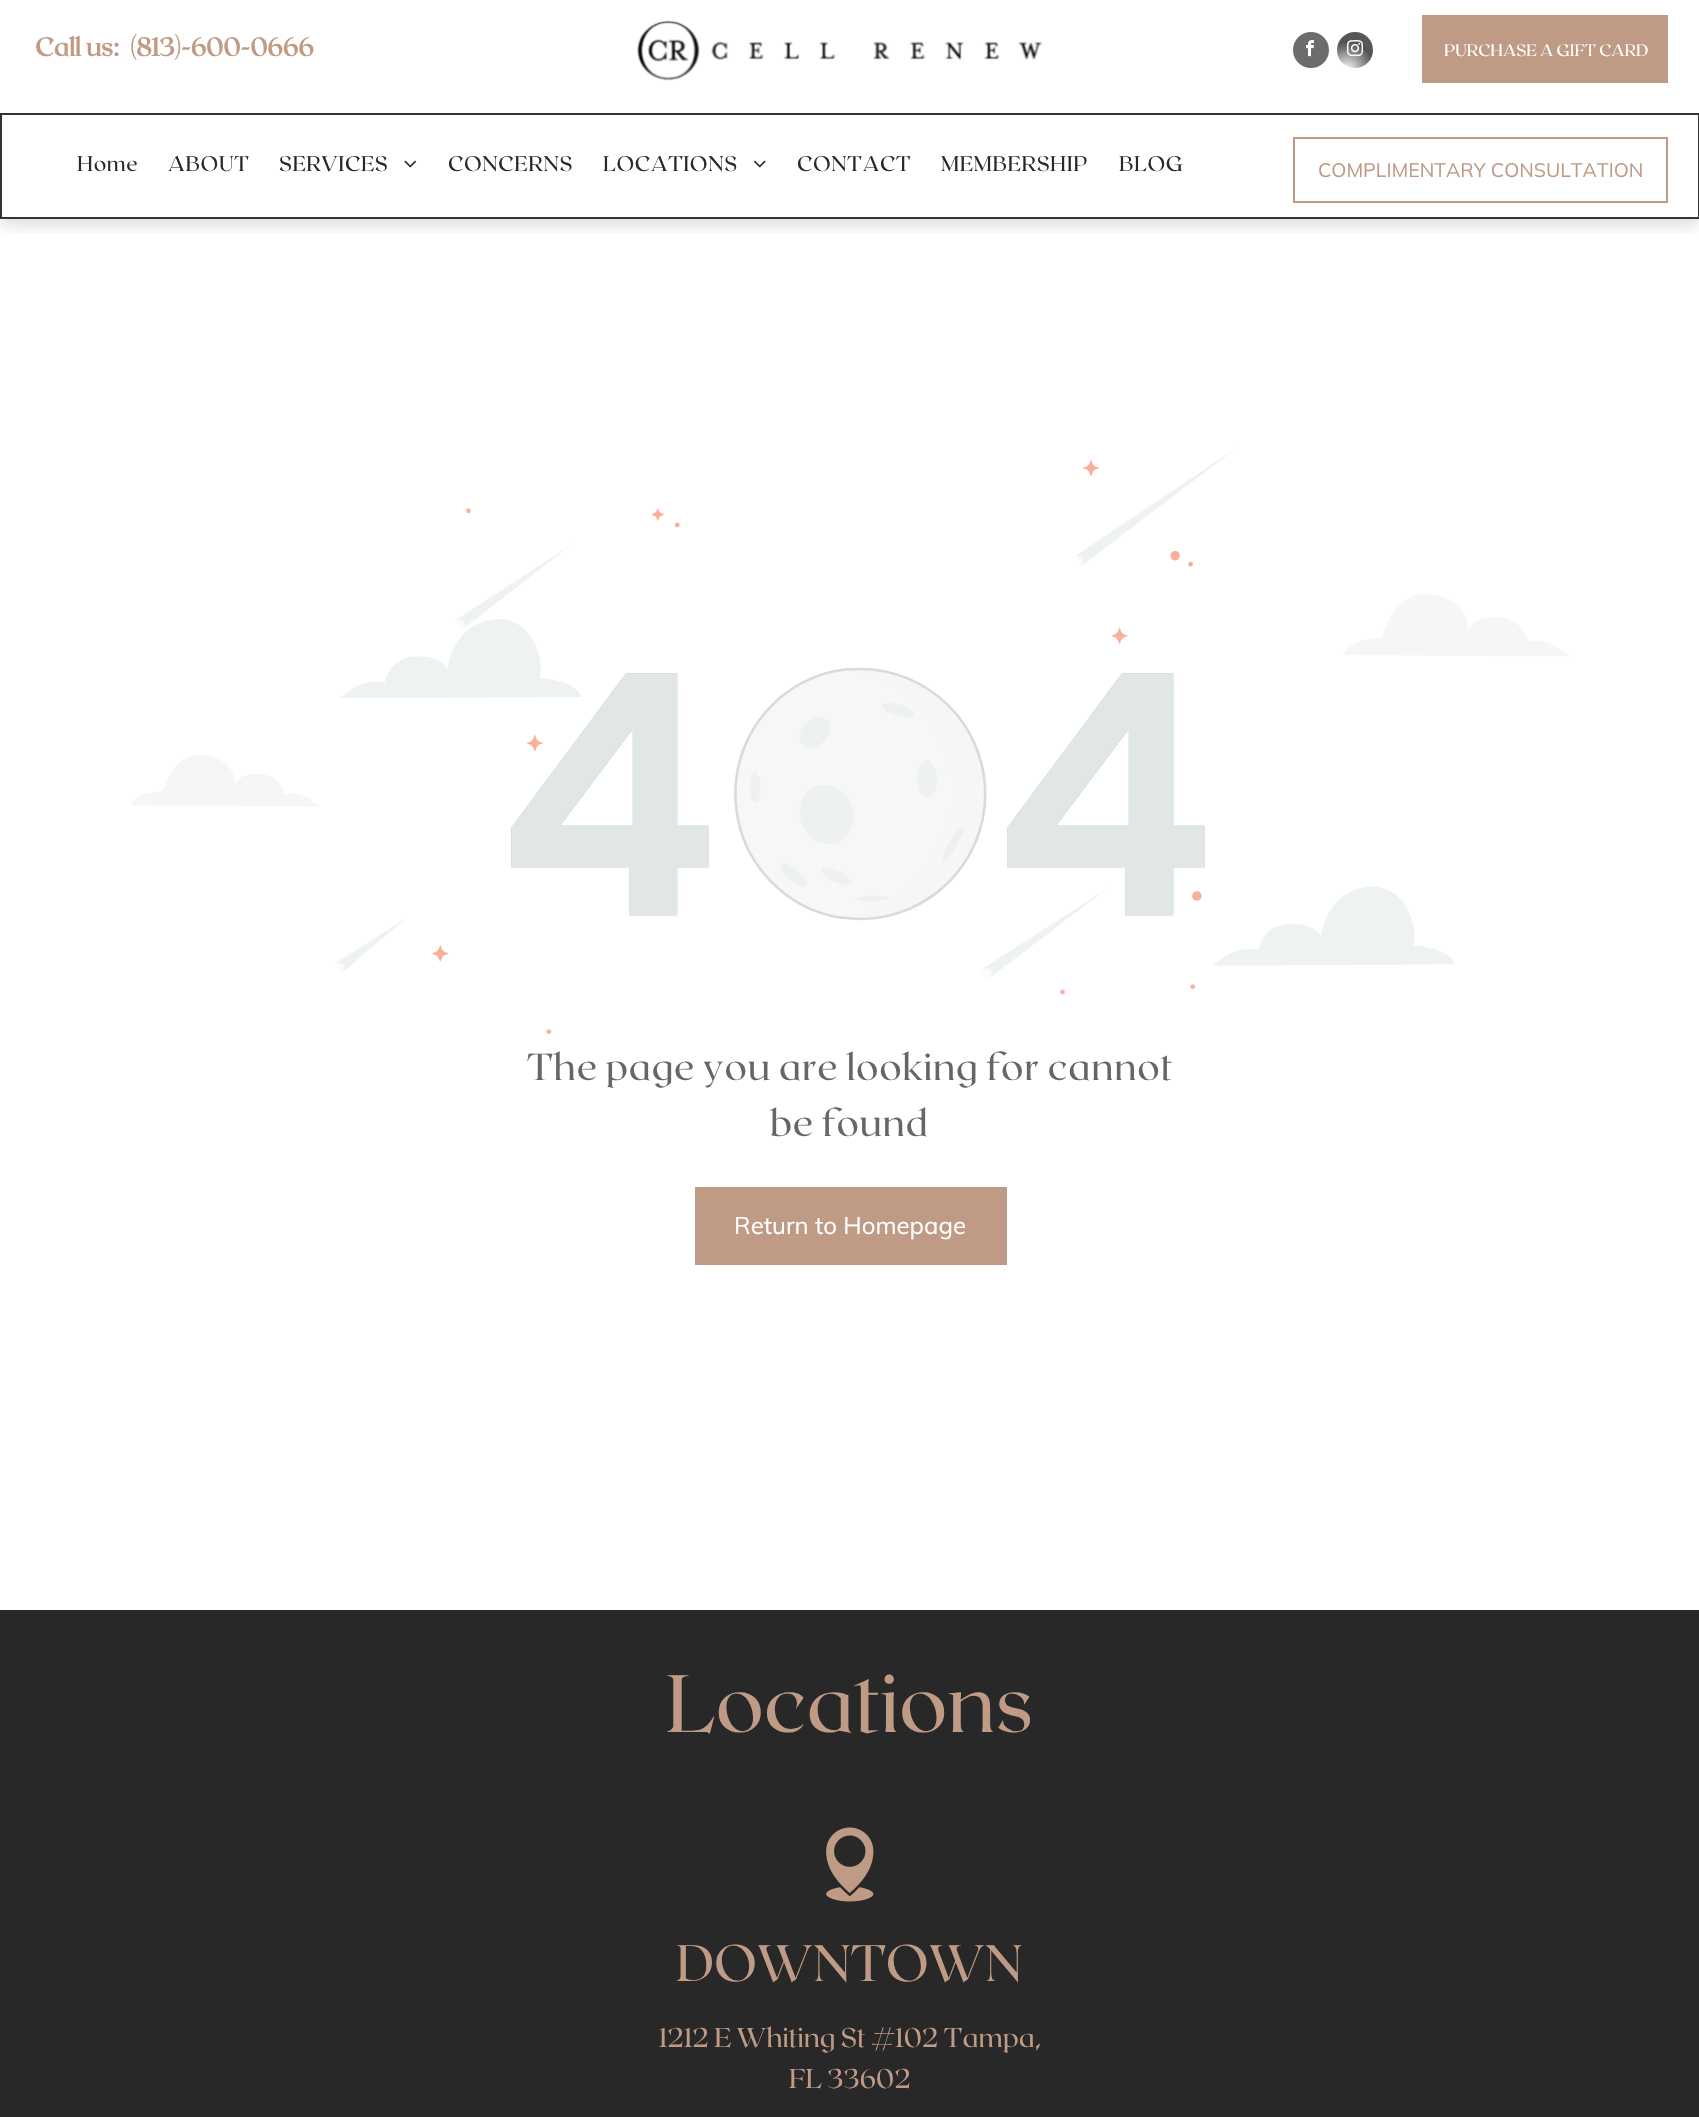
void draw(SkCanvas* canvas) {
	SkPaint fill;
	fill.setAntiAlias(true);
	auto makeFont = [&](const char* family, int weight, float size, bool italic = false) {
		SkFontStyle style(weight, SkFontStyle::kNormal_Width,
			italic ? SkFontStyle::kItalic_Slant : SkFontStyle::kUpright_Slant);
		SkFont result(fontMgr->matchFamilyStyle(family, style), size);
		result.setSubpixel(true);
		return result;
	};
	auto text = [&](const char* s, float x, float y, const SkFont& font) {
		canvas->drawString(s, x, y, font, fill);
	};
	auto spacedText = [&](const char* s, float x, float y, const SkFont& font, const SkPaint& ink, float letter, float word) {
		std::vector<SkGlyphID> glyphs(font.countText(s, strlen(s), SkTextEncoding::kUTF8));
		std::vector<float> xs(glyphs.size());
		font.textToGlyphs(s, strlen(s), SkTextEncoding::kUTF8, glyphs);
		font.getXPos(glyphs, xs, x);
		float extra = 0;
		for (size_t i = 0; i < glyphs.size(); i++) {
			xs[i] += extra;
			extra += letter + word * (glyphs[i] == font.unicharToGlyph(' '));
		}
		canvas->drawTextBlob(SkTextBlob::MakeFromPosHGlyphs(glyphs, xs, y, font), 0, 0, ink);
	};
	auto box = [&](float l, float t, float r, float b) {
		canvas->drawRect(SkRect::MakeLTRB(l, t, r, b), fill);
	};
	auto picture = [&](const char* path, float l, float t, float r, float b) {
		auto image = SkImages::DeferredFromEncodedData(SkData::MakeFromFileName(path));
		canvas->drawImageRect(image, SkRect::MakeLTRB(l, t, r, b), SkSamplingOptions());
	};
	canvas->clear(0xFFFFFFFF);
	canvas->save();
	canvas->clipRect(SkRect::MakeLTRB(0, 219, 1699, 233));
	fill.setColor(0x26000000);
	fill.setMaskFilter(SkMaskFilter::MakeBlur(kNormal_SkBlurStyle, 8));
	canvas->drawRect(SkRect::MakeLTRB(0, 5, 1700, 224), fill);
	fill.setMaskFilter(nullptr);
	canvas->restore();
	picture("image0.png", 637, 20, 1043, 81);
	fill.setColor(0xFF6C6C6C);
	canvas->drawCircle(1311, 50, 18, fill);
	picture("image1.png", 1306, 40, 1314, 57);
	{
		const SkColor colors[] = {0xFFEFEFEF, 0xFFEFEFEF, 0xFF7B7B7B, 0xFF535353, 0xFF5A5A5A};
		const float stops[] = {0, 0.05f, 0.45f, 0.6f, 0.9f};
		fill.setShader(SkGradientShader::MakeRadial({1347, 70}, 46, colors, stops, 5, SkTileMode::kClamp));
		fill.setAlpha(255);
	}
	canvas->drawCircle(1355, 50, 18, fill);
	picture("image2.png", 1347, 40, 1363, 57);
	fill.setShader(nullptr);
	fill.setColor(0xFFBF9B85);
	box(1422, 15, 1668, 83);
	fill.setStyle(SkPaint::kStroke_Style);
	fill.setStrokeWidth(2);
	fill.setColor(0xFF333333);
	canvas->drawRect(SkRect::MakeLTRB(1, 114, 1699, 218), fill);
	picture("image3.png", 404, 160, 417, 168);
	picture("image4.png", 753, 160, 766, 168);
	fill.setColor(0xFFBF9B85);
	canvas->drawRect(SkRect::MakeLTRB(1294, 138, 1667, 202), fill);
	picture("image5.png", 131, 446, 1570, 1034);
	fill.setStyle(SkPaint::kFill_Style);
	box(695, 1187, 1007, 1265);
	fill.setColor(0xFF282828);
	box(0, 1610, 1699, 2117);
	picture("image6.png", 826, 1827, 874, 1902);
	auto font1 = makeFont("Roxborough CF", 700, 25.5f);
	fill.setColor(0xFFBF9B85);
	text("Call us:", 35, 56, font1);
	text("(813)-600-0666", 130, 56, font1);
	auto font2 = makeFont("Roxborough CF", 400, 16.5f);
	fill.setColor(0xFFFFFFFF);
	text("PURCHASE A GIFT CARD", 1444, 56, font2);
	auto font3 = makeFont("Roxborough CF", 400, 21);
	fill.setColor(0xFF282828);
	spacedText("Home", 77, 171, font3, fill, 0.6f, 0);
	spacedText("ABOUT", 168, 171, font3, fill, 0.6f, 0);
	spacedText("SERVICES", 279, 171, font3, fill, 0.6f, 0);
	spacedText("CONCERNS", 448, 171, font3, fill, 0.6f, 0);
	spacedText("LOCATIONS", 603, 171, font3, fill, 0.6f, 0);
	spacedText("CONTACT", 797, 171, font3, fill, 0.6f, 0);
	spacedText("MEMBERSHIP", 941, 171, font3, fill, 0.6f, 0);
	spacedText("BLOG", 1119, 171, font3, fill, 0.6f, 0);
	auto font4 = makeFont("Mulish", 400, 19.5f);
	fill.setColor(0xFFBF9B85);
	text("COMPLIMENTARY CONSULTATION", 1318, 177, font4);
	auto font5 = makeFont("Roxborough CF", 400, 37.5f);
	fill.setColor(0xFF666666);
	spacedText("The page you are looking for cannot", 527, 1080, font5, fill, 0.75f, 0);
	spacedText("be found", 770, 1136, font5, fill, 0.75f, 0);
	auto font6 = makeFont("Muli", 400, 24);
	fill.setColor(0xFFFFFFFF);
	text("Return to Homepage", 734, 1234, font6);
	auto font7 = makeFont("Roxborough CF", 400, 81);
	fill.setColor(0xFFBF9B85);
	text("Locations", 666, 1732, font7);
	auto font8 = makeFont("Roxborough CF", 400, 51);
	text("DOWNTOWN", 676, 1981, font8);
	auto font9 = makeFont("Roxborough CF", 400, 27);
	text("1212 E Whiting St #102 Tampa,", 659, 2047, font9);
	text("FL 33602", 789, 2088, font9);
}
